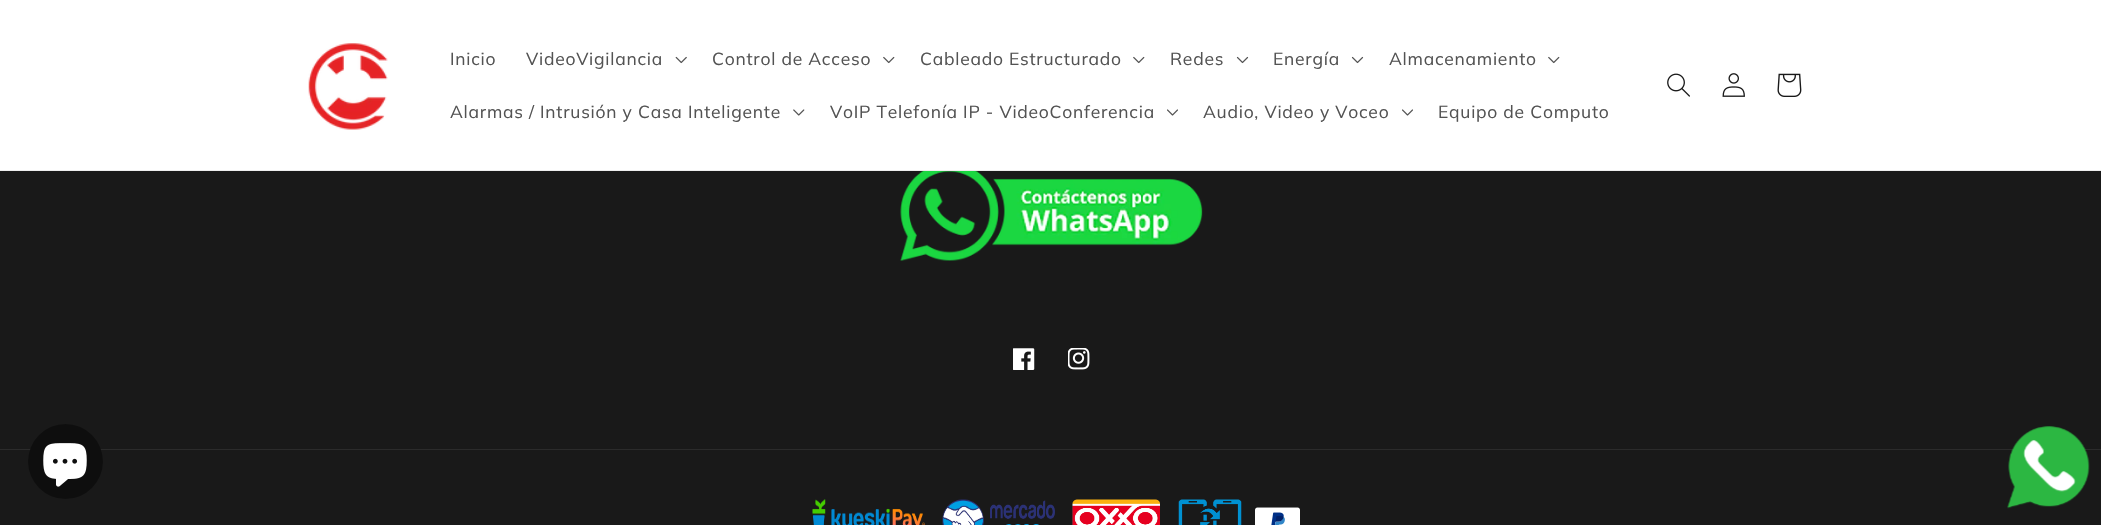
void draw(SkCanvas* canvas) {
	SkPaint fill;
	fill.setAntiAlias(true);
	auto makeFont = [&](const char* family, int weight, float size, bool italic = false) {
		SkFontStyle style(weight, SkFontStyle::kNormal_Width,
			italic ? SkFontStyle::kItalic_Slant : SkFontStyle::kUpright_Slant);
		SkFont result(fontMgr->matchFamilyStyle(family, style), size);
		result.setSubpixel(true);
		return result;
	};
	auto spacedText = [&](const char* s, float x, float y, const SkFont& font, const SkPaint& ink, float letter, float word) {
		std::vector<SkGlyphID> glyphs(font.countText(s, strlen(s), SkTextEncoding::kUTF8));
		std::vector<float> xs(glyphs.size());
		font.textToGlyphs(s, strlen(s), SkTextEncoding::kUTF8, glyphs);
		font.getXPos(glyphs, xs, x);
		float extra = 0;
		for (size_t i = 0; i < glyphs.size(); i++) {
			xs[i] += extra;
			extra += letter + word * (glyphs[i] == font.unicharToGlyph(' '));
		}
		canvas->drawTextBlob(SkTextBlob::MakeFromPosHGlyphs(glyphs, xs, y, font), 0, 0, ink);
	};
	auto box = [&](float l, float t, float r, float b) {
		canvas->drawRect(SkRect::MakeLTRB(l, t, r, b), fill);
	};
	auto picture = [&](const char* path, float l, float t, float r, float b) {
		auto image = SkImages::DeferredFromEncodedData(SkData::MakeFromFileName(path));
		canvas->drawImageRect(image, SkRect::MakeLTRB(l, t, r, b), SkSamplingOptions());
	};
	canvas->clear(0xFF191919);
	fill.setColor(0xFFFFFFFF);
	box(0, 0, 2101, 170);
	fill.setColor(0xFFEDEDED);
	box(0, 170, 2101, 171);
	picture("image0.png", 308, 43, 388, 130);
	picture("image1.png", 675, 56, 687, 64);
	picture("image2.png", 883, 56, 895, 64);
	picture("image2.png", 1133, 56, 1145, 64);
	picture("image3.png", 1236, 56, 1249, 64);
	picture("image3.png", 1351, 56, 1364, 64);
	picture("image2.png", 1548, 56, 1560, 64);
	picture("image4.png", 793, 109, 805, 116);
	picture("image5.png", 1167, 109, 1178, 116);
	picture("image5.png", 1402, 109, 1413, 116);
	picture("image6.png", 1667, 73, 1690, 97);
	picture("image7.png", 1722, 73, 1745, 97);
	picture("image8.png", 1777, 73, 1802, 97);
	picture("image9.png", 900, 171, 1203, 261);
	picture("image10.png", 1013, 348, 1035, 370);
	picture("image11.png", 1068, 348, 1090, 370);
	fill.setColor(0xFF2B2B2B);
	box(0, 449, 2101, 450);
	picture("image12.png", 812, 499, 925, 525);
	picture("image13.png", 942, 499, 1055, 525);
	picture("image14.png", 1072, 499, 1160, 525);
	picture("image15.png", 1178, 499, 1242, 525);
	picture("image16.png", 1255, 507, 1300, 525);
	fill.setColor(0xFF0E0E0E);
	canvas->drawCircle(65.5f, 461.5f, 37.5f, fill);
	picture("image17.png", 43, 443, 87, 487);
	picture("image18.png", 2007, 426, 2090, 509);
	auto font1 = makeFont("Muli", 400, 17.5f);
	fill.setColor(0xFF535353);
	spacedText("Inicio", 450, 65, font1, fill, 0.75f, 0);
	spacedText("VideoVigilancia", 526, 65, font1, fill, 0.75f, 0);
	spacedText("Control de Acceso", 712, 65, font1, fill, 0.75f, 0);
	spacedText("Cableado Estructurado", 920, 65, font1, fill, 0.75f, 0);
	spacedText("Redes", 1170, 65, font1, fill, 0.75f, 0);
	spacedText("Energía", 1273, 65, font1, fill, 0.75f, 0);
	spacedText("Almacenamiento", 1389, 65, font1, fill, 0.75f, 0);
	spacedText("Alarmas / Intrusión y Casa Inteligente", 450, 118, font1, fill, 0.75f, 0);
	spacedText("VoIP Telefonía IP - VideoConferencia", 830, 118, font1, fill, 0.75f, 0);
	spacedText("Audio, Video y Voceo", 1203, 118, font1, fill, 0.75f, 0);
	spacedText("Equipo de Computo", 1438, 118, font1, fill, 0.75f, 0);
}
